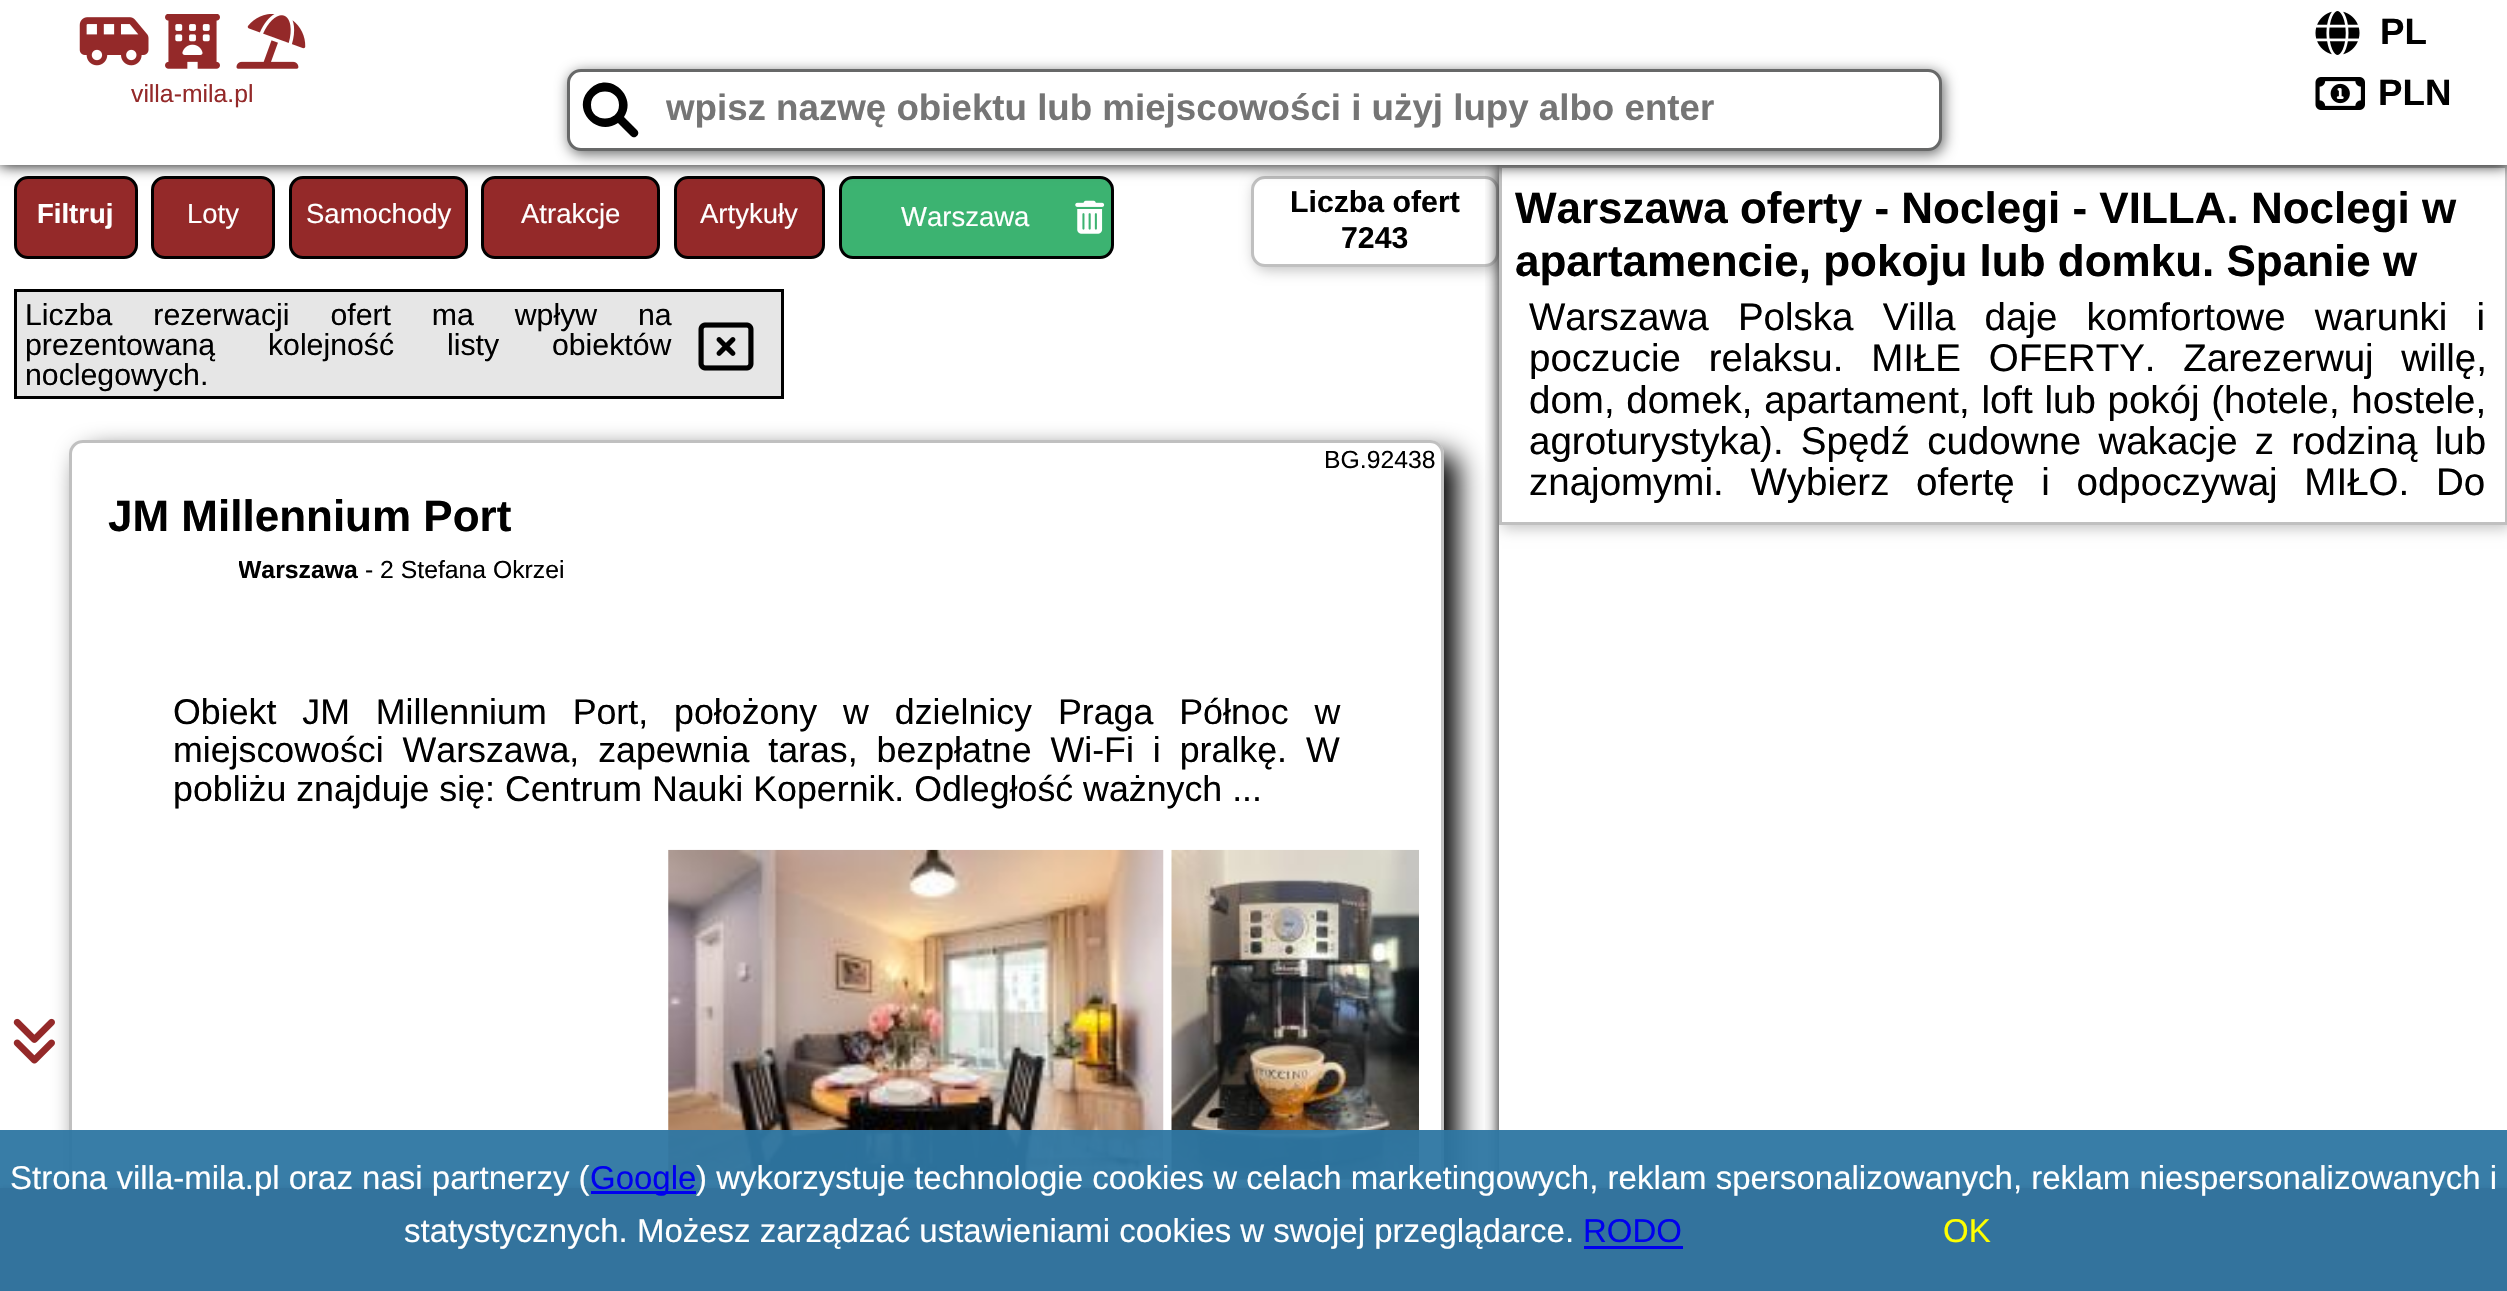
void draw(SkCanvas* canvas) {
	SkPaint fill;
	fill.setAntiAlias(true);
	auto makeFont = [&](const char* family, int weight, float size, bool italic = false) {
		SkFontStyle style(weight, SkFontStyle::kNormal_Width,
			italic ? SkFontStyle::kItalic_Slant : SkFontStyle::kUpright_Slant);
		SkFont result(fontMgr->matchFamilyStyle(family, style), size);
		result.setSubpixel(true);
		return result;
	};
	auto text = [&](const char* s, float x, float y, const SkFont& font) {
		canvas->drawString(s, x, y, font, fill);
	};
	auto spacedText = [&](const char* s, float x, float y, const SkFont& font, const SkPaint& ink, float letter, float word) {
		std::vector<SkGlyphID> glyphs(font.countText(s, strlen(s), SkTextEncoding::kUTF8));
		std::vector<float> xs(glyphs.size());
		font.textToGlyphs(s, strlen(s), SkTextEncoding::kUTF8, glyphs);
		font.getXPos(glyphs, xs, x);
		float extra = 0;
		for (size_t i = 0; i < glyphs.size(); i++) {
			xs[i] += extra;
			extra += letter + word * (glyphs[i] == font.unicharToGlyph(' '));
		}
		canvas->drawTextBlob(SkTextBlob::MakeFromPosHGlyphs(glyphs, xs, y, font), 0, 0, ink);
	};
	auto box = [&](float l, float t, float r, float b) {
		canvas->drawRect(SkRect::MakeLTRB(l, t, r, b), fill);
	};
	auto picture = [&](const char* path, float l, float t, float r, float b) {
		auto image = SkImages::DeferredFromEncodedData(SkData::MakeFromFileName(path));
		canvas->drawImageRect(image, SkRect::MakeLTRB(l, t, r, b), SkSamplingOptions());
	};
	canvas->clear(0xFFFFFFFF);
	fill.setColor(0xFF942929);
	canvas->drawRoundRect(SkRect::MakeLTRB(15.5f, 177.5f, 136.5f, 257.5f), 12.5f, 12.5f, fill);
	fill.setStyle(SkPaint::kStroke_Style);
	fill.setStrokeWidth(3);
	fill.setColor(0xFF000000);
	canvas->drawRoundRect(SkRect::MakeLTRB(15.5f, 177.5f, 136.5f, 257.5f), 12.5f, 12.5f, fill);
	fill.setStyle(SkPaint::kFill_Style);
	fill.setColor(0xFF942929);
	canvas->drawRoundRect(SkRect::MakeLTRB(152.5f, 177.5f, 273.5f, 257.5f), 12.5f, 12.5f, fill);
	fill.setStyle(SkPaint::kStroke_Style);
	fill.setColor(0xFF000000);
	canvas->drawRoundRect(SkRect::MakeLTRB(152.5f, 177.5f, 273.5f, 257.5f), 12.5f, 12.5f, fill);
	fill.setStyle(SkPaint::kFill_Style);
	fill.setColor(0xFF942929);
	canvas->drawRoundRect(SkRect::MakeLTRB(290.5f, 177.5f, 466.5f, 257.5f), 12.5f, 12.5f, fill);
	fill.setStyle(SkPaint::kStroke_Style);
	fill.setColor(0xFF000000);
	canvas->drawRoundRect(SkRect::MakeLTRB(290.5f, 177.5f, 466.5f, 257.5f), 12.5f, 12.5f, fill);
	fill.setStyle(SkPaint::kFill_Style);
	fill.setColor(0xFF942929);
	canvas->drawRoundRect(SkRect::MakeLTRB(482.5f, 177.5f, 658.5f, 257.5f), 12.5f, 12.5f, fill);
	fill.setStyle(SkPaint::kStroke_Style);
	fill.setColor(0xFF000000);
	canvas->drawRoundRect(SkRect::MakeLTRB(482.5f, 177.5f, 658.5f, 257.5f), 12.5f, 12.5f, fill);
	fill.setStyle(SkPaint::kFill_Style);
	fill.setColor(0xFF942929);
	canvas->drawRoundRect(SkRect::MakeLTRB(675.5f, 177.5f, 823.5f, 257.5f), 12.5f, 12.5f, fill);
	fill.setStyle(SkPaint::kStroke_Style);
	fill.setColor(0xFF000000);
	canvas->drawRoundRect(SkRect::MakeLTRB(675.5f, 177.5f, 823.5f, 257.5f), 12.5f, 12.5f, fill);
	fill.setStyle(SkPaint::kFill_Style);
	fill.setColor(0xFF3CB371);
	canvas->drawRoundRect(SkRect::MakeLTRB(840.5f, 177.5f, 1112.5f, 257.5f), 12.5f, 12.5f, fill);
	fill.setStyle(SkPaint::kStroke_Style);
	fill.setColor(0xFF000000);
	canvas->drawRoundRect(SkRect::MakeLTRB(840.5f, 177.5f, 1112.5f, 257.5f), 12.5f, 12.5f, fill);
	fill.setStyle(SkPaint::kFill_Style);
	fill.setColor(0xFFC0C0C0);
	fill.setMaskFilter(SkMaskFilter::MakeBlur(kNormal_SkBlurStyle, 7));
	canvas->drawRoundRect(SkRect::MakeLTRB(1254, 179, 1502, 270), 14, 14, fill);
	fill.setMaskFilter(nullptr);
	fill.setColor(0xFFFFFFFF);
	canvas->drawRoundRect(SkRect::MakeLTRB(1252.5f, 177.5f, 1497.5f, 265.5f), 12.5f, 12.5f, fill);
	fill.setStyle(SkPaint::kStroke_Style);
	fill.setColor(0xFFC0C0C0);
	canvas->drawRoundRect(SkRect::MakeLTRB(1252.5f, 177.5f, 1497.5f, 265.5f), 12.5f, 12.5f, fill);
	fill.setStyle(SkPaint::kFill_Style);
	fill.setColor(0xFF000000);
	fill.setMaskFilter(SkMaskFilter::MakeBlur(kNormal_SkBlurStyle, 14));
	canvas->drawRoundRect(SkRect::MakeLTRB(83, 454, 1458, 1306), 14, 14, fill);
	fill.setMaskFilter(nullptr);
	canvas->save();
	canvas->clipRect(SkRect::MakeLTRB(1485, 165, 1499, 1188));
	fill.setMaskFilter(SkMaskFilter::MakeBlur(kNormal_SkBlurStyle, 7));
	canvas->drawRect(SkRect::MakeLTRB(1499, 165, 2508, 1188), fill);
	fill.setMaskFilter(nullptr);
	canvas->restore();
	canvas->save();
	canvas->clipRect(SkRect::MakeLTRB(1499, 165, 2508, 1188));
	fill.setColor(0xFFC0C0C0);
	fill.setMaskFilter(SkMaskFilter::MakeBlur(kNormal_SkBlurStyle, 7));
	canvas->drawRect(SkRect::MakeLTRB(1502, 168, 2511, 528), fill);
	fill.setMaskFilter(nullptr);
	canvas->restore();
	fill.setColor(0xFFFFFFFF);
	canvas->drawRect(SkRect::MakeLTRB(1500.5f, 166.5f, 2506.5f, 523.5f), fill);
	fill.setStyle(SkPaint::kStroke_Style);
	fill.setColor(0xFFC0C0C0);
	canvas->drawRect(SkRect::MakeLTRB(1500.5f, 166.5f, 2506.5f, 523.5f), fill);
	fill.setStyle(SkPaint::kFill_Style);
	fill.setColor(0xFF000000);
	fill.setMaskFilter(SkMaskFilter::MakeBlur(kNormal_SkBlurStyle, 7));
	canvas->drawRect(SkRect::MakeLTRB(0, 0, 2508, 165), fill);
	fill.setMaskFilter(nullptr);
	fill.setColor(0xFFFFFFFF);
	box(0, 0, 2507, 165);
	picture("image0.png", 2315, 11, 2360, 55);
	picture("image1.png", 79, 17, 149, 66);
	picture("image2.png", 165, 14, 220, 69);
	picture("image3.png", 236, 14, 306, 69);
	fill.setColor(0xFF676868);
	fill.setMaskFilter(SkMaskFilter::MakeBlur(kNormal_SkBlurStyle, 7));
	canvas->drawRoundRect(SkRect::MakeLTRB(569, 72, 1944, 154), 14, 14, fill);
	fill.setMaskFilter(nullptr);
	fill.setColor(0xFFFFFFFF);
	canvas->drawRoundRect(SkRect::MakeLTRB(568.5f, 70.5f, 1940.5f, 149.5f), 12.5f, 12.5f, fill);
	fill.setStyle(SkPaint::kStroke_Style);
	fill.setColor(0xFF676868);
	canvas->drawRoundRect(SkRect::MakeLTRB(568.5f, 70.5f, 1940.5f, 149.5f), 12.5f, 12.5f, fill);
	fill.setStyle(SkPaint::kFill_Style);
	fill.setColor(0xFF000000);
	canvas->drawPath(SkPathBuilder().moveTo(637, 130).lineTo(624, 117).cubicTo(638, 96, 609, 70, 590, 89).cubicTo(570, 108, 596, 138, 618, 123).lineTo(631, 136).cubicTo(635, 140, 641, 134, 637, 130).close().moveTo(591, 105).cubicTo(591, 87, 619, 87, 619, 105).cubicTo(619, 123, 591, 123, 591, 105).close().detach(), fill);
	picture("image4.png", 2315, 77, 2365, 110);
	picture("image5.png", 1075, 200, 1105, 234);
	fill.setColor(0xFFE6E6E6);
	canvas->drawRect(SkRect::MakeLTRB(15.5f, 290.5f, 782.5f, 397.5f), fill);
	fill.setStyle(SkPaint::kStroke_Style);
	fill.setColor(0xFF000000);
	canvas->drawRect(SkRect::MakeLTRB(15.5f, 290.5f, 782.5f, 397.5f), fill);
	picture("image6.png", 698, 322, 754, 371);
	fill.setStyle(SkPaint::kFill_Style);
	fill.setColor(0xFFFFFFFF);
	canvas->drawPath(SkPathBuilder().moveTo(83, 440).lineTo(1430, 440).cubicTo(1437.5f, 440, 1444, 446.5f, 1444, 454).lineTo(1444, 1188).lineTo(69, 1188).lineTo(69, 454).cubicTo(69, 446.5f, 75.5f, 440, 83, 440).close().detach(), fill);
	fill.setStyle(SkPaint::kStroke_Style);
	fill.setColor(0xFFC0C0C0);
	canvas->drawRoundRect(SkRect::MakeLTRB(70.5f, 441.5f, 1442.5f, 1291.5f), 12.5f, 12.5f, fill);
	picture("image7.png", 668, 849, 1164, 1180);
	picture("image8.png", 1171, 849, 1419, 1180);
	picture("image9.png", 13, 1018, 55, 1064);
	fill.setStyle(SkPaint::kFill_Style);
	fill.setColor(0xFF942929);
	fill.setMaskFilter(SkMaskFilter::MakeBlur(kNormal_SkBlurStyle, 3));
	canvas->drawRect(SkRect::MakeLTRB(0, 1188, 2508, 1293), fill);
	fill.setMaskFilter(nullptr);
	box(0, 1188, 2507, 1291);
	fill.setColor(0xF22D76A2);
	box(0, 1130, 2507, 1291);
	fill.setColor(0xFF0000EE);
	box(591, 1191, 696, 1194);
	box(1584, 1246, 1683, 1249);
	auto font1 = makeFont("Liberation Sans", 700, 36.7f);
	fill.setColor(0xFF000000);
	text("PL", 2380, 44, font1);
	auto font2 = makeFont("Liberation Sans", 400, 24.75f);
	fill.setColor(0xFF942929);
	text("villa-mila.pl", 131, 102, font2);
	canvas->save();
	canvas->clipRect(SkRect::MakeLTRB(666, 88, 1859, 129));
	fill.setColor(0xFF757575);
	text("wpisz nazwę obiektu lub miejscowości i użyj lupy albo enter", 666, 120, font1);
	canvas->restore();
	fill.setColor(0xFF000000);
	text("PLN", 2378, 105, font1);
	auto font3 = makeFont("Liberation Sans", 700, 27.5f);
	fill.setColor(0xFFFFFFFF);
	text("Filtruj", 37, 223, font3);
	auto font4 = makeFont("Liberation Sans", 400, 27.5f);
	text("Loty", 187, 223, font4);
	text("Samochody", 306, 223, font4);
	text("Atrakcje", 521, 223, font4);
	text("Artykuły", 700, 223, font4);
	text("Warszawa", 901, 226, font4);
	auto font5 = makeFont("Liberation Sans", 700, 30.25f);
	fill.setColor(0xFF000000);
	text("Liczba ofert", 1290, 212, font5);
	text("7243", 1341, 248, font5);
	auto font6 = makeFont("Liberation Sans", 400, 30.25f);
	spacedText("Liczba rezerwacji ofert ma wpływ na", 25, 325, font6, fill, 0, 32.5f);
	spacedText("prezentowaną kolejność listy obiektów", 25, 355, font6, fill, 0, 44.5f);
	text("noclegowych.", 25, 385, font6);
	text("BG.92438", 1324, 468, font2);
	auto font7 = makeFont("Liberation Sans", 700, 44);
	text("JM Millennium Port", 108, 531, font7);
	canvas->save();
	canvas->clipRect(SkRect::MakeLTRB(239, 556, 1419, 666));
	auto font8 = makeFont("Liberation Sans", 700, 24.75f);
	text("Warszawa", 238, 578, font8);
	canvas->restore();
	text("- 2 Stefana Okrzei", 365, 578, font2);
	auto font9 = makeFont("Liberation Sans", 400, 35.75f);
	spacedText("Obiekt JM Millennium Port, położony w dzielnicy Praga Północ w", 173, 724, font9, fill, 0, 16);
	spacedText("miejscowości Warszawa, zapewnia taras, bezpłatne Wi-Fi i pralkę. W", 173, 762, font9, fill, 0, 9);
	text("pobliżu znajduje się: Centrum Nauki Kopernik. Odległość ważnych ...", 173, 801, font9);
	text("Warszawa oferty - Noclegi - VILLA. Noclegi w", 1515, 223, font7);
	text("apartamencie, pokoju lub domku. Spanie w", 1515, 276, font7);
	auto font10 = makeFont("Liberation Sans", 400, 38.5f);
	spacedText("Warszawa Polska Villa daje komfortowe warunki i", 1529, 330, font10, fill, 0, 18.5f);
	spacedText("poczucie relaksu. MIŁE OFERTY. Zarezerwuj willę,", 1529, 371, font10, fill, 0, 17);
	spacedText("dom, domek, apartament, loft lub pokój (hotele, hostele,", 1529, 413, font10, fill, 0, 1);
	spacedText("agroturystyka). Spędź cudowne wakacje z rodziną lub", 1529, 454, font10, fill, 0, 6.5f);
	spacedText("znajomymi. Wybierz ofertę i odpoczywaj MIŁO. Do", 1529, 495, font10, fill, 0, 16);
	auto font11 = makeFont("Liberation Sans", 400, 33);
	fill.setColor(0xFFFFFFFF);
	text("Strona villa-mila.pl oraz nasi partnerzy (", 10, 1189, font11);
	fill.setColor(0xFF0000EE);
	text("Google", 590, 1189, font11);
	fill.setColor(0xFFFFFFFF);
	text(") wykorzystuje technologie cookies w celach marketingowych, reklam spersonalizowanych, reklam niespersonalizowanych i", 696, 1189, font11);
	text("statystycznych. Możesz zarządzać ustawieniami cookies w swojej przeglądarce.", 404, 1242, font11);
	fill.setColor(0xFF0000EE);
	text("RODO", 1583, 1242, font11);
	fill.setColor(0xFFFFFF00);
	text("OK", 1943, 1242, font11);
}
